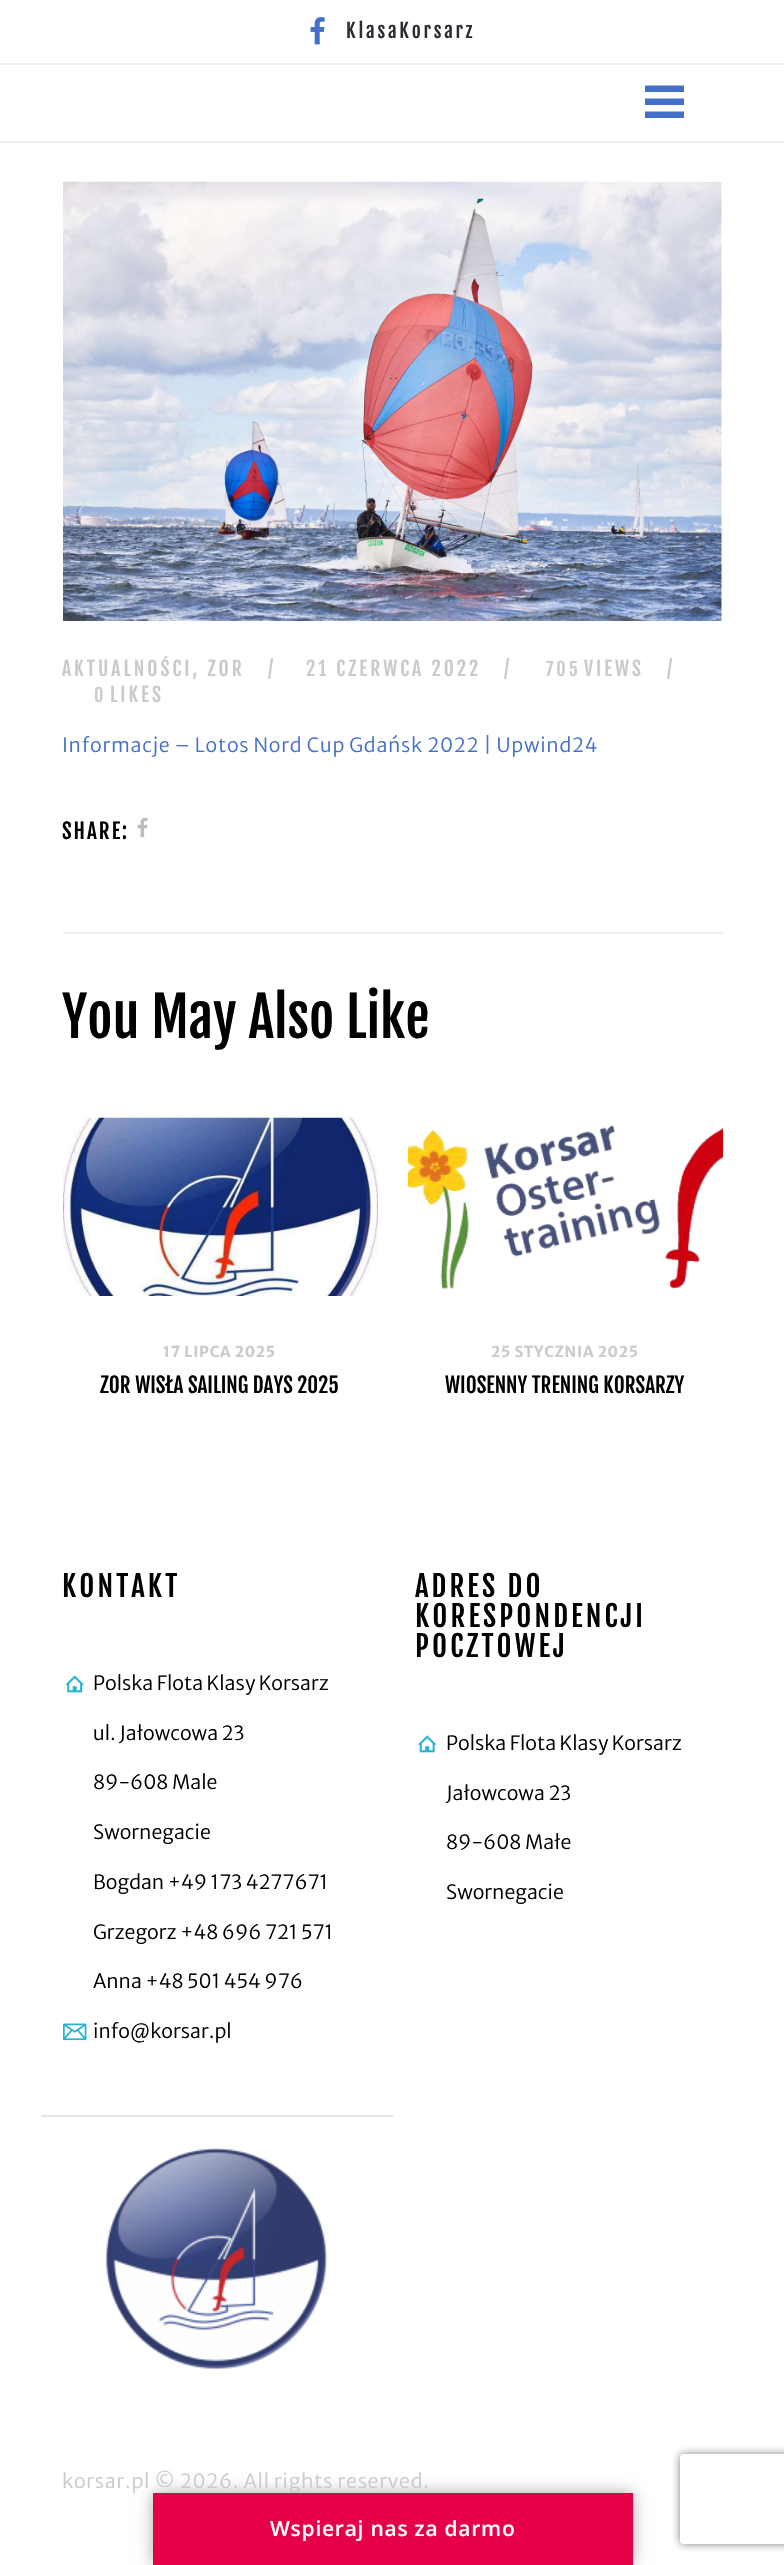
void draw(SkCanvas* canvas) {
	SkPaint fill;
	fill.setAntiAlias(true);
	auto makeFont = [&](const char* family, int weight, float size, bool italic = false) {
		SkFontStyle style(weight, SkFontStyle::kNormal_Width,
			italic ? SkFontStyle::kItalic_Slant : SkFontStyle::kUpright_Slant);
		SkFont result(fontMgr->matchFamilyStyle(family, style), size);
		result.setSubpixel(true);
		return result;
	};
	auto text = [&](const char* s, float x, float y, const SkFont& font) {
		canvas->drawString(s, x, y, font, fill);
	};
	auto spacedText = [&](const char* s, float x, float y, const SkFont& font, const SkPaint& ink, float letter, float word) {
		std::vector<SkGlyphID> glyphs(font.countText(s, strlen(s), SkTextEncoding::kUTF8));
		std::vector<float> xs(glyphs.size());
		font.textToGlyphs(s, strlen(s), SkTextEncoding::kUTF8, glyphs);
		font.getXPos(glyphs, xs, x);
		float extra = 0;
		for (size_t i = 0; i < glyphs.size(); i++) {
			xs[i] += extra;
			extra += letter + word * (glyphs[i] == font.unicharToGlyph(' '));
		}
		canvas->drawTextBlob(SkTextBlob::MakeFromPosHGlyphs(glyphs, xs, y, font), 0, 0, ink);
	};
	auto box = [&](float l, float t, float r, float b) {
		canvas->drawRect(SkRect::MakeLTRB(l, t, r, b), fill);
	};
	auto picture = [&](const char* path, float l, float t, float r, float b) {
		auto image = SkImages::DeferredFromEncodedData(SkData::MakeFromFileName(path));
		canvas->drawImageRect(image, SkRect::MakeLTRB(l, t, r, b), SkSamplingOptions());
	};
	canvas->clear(0xFFFFFFFF);
	fill.setColor(0xFFEFEFEF);
	box(0, 63, 784, 65);
	picture("image0.png", 310, 17, 325, 45);
	box(0, 141, 784, 143);
	fill.setColor(0xFF436EC9);
	canvas->drawPath(SkPathBuilder().moveTo(684, 92).lineTo(645, 92).lineTo(645, 85.5f).lineTo(684, 85.5f).close().moveTo(684, 98.5f).lineTo(645, 98.5f).lineTo(645, 105).lineTo(684, 105).close().moveTo(684, 111.5f).lineTo(645, 111.5f).lineTo(645, 118).lineTo(684, 118).close().detach(), fill);
	picture("image1.png", 63, 181, 722, 621);
	picture("image2.png", 137, 817, 148, 838);
	fill.setColor(0xFFEFEFEF);
	box(63, 932, 723, 934);
	picture("image3.png", 63, 1117, 378, 1296);
	picture("image4.png", 408, 1125, 723, 1290);
	picture("image5.png", 65, 1675, 84, 1693);
	picture("image6.png", 63, 2023, 87, 2041);
	picture("image7.png", 417, 1735, 437, 1753);
	fill.setColor(0xFFE6E6E6);
	box(41, 2115, 393, 2117);
	picture("image8.png", 105, 2147, 328, 2370);
	canvas->save();
	canvas->clipPath(SkPathBuilder(SkPathFillType::kEvenOdd).moveTo(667, 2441).lineTo(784, 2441).lineTo(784, 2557).lineTo(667, 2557).close().moveTo(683, 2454).lineTo(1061, 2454).cubicTo(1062.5f, 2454, 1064, 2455.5f, 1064, 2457).lineTo(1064, 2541).cubicTo(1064, 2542.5f, 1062.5f, 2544, 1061, 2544).lineTo(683, 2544).cubicTo(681.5f, 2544, 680, 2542.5f, 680, 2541).lineTo(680, 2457).cubicTo(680, 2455.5f, 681.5f, 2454, 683, 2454).close().detach(), true);
	fill.setColor(0xFF808080);
	fill.setMaskFilter(SkMaskFilter::MakeBlur(kNormal_SkBlurStyle, 4));
	canvas->drawRoundRect(SkRect::MakeLTRB(680, 2454, 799, 2544), 3, 3, fill);
	fill.setMaskFilter(nullptr);
	canvas->restore();
	fill.setColor(0xFFAAAAAA);
	fill.setMaskFilter(SkMaskFilter::MakeBlur(kNormal_SkBlurStyle, 7.5f));
	canvas->drawRect(SkRect::MakeLTRB(153, 2493, 633, 2565), fill);
	fill.setMaskFilter(nullptr);
	fill.setColor(0xFFE50048);
	box(153, 2493, 633, 2565);
	auto font1 = makeFont("Fjalla One", 400, 19.5f);
	fill.setColor(0xFF2A2D32);
	spacedText("KlasaKorsarz", 346, 38, font1, fill, 2.75f, 0);
	fill.setColor(0xFFCACACA);
	spacedText("AKTUALNOŚCI, ZOR", 62, 676, font1, fill, 3, 0);
	spacedText("/", 268, 676, font1, fill, 3, 0);
	spacedText("21 CZERWCA 2022", 306, 676, font1, fill, 3, 0);
	spacedText("/", 504, 676, font1, fill, 3, 0);
	auto font2 = makeFont("Fjalla One", 400, 18);
	spacedText("705", 546, 676, font2, fill, 3, 0);
	spacedText("VIEWS", 584, 676, font1, fill, 3, 0);
	spacedText("/", 667, 676, font1, fill, 3, 0);
	spacedText("0", 94, 702, font2, fill, 3, 0);
	spacedText("LIKES", 110, 702, font1, fill, 3, 0);
	auto font3 = makeFont("Merriweather Sans", 300, 19.5f);
	fill.setColor(0xFF436EC9);
	spacedText("Informacje – Lotos Nord Cup Gdańsk 2022 | Upwind24", 62, 752, font3, fill, 0.75f, 0);
	auto font4 = makeFont("Fjalla One", 400, 21);
	fill.setColor(0xFF000000);
	spacedText("SHARE:", 62, 839, font4, fill, 2, 0);
	auto font5 = makeFont("Fjalla One", 400, 54.5f);
	text("You May Also Like", 62, 1038, font5);
	auto font6 = makeFont("Merriweather Sans", 700, 15);
	fill.setColor(0xFFCACACA);
	spacedText("17 LIPCA 2025", 163, 1357, font6, fill, 0.75f, 0);
	fill.setColor(0xFF000000);
	text("ZOR WISŁA SAILING DAYS 2025", 100, 1393, font4);
	fill.setColor(0xFFCACACA);
	spacedText("25 STYCZNIA 2025", 491, 1357, font6, fill, 0.75f, 0);
	fill.setColor(0xFF000000);
	text("WIOSENNY TRENING KORSARZY", 445, 1393, font4);
	auto font7 = makeFont("Fjalla One", 400, 28.75f);
	spacedText("KONTAKT", 62, 1597, font7, fill, 3.1f, 0);
	text("Polska Flota Klasy Korsarz", 93, 1690, font3);
	text("ul. Jałowcowa 23", 93, 1740, font3);
	text("89-608 Male", 93, 1789, font3);
	text("Swornegacie", 93, 1839, font3);
	text("Bogdan +49 173 4277671", 93, 1889, font3);
	text("Grzegorz +48 696 721 571", 93, 1939, font3);
	text("Anna +48 501 454 976", 93, 1988, font3);
	text("info@korsar.pl", 93, 2038, font3);
	spacedText("ADRES DO", 415, 1597, font7, fill, 3.1f, 0);
	spacedText("KORESPONDENCJI", 415, 1627, font7, fill, 3.1f, 0);
	spacedText("POCZTOWEJ", 415, 1657, font7, fill, 3.1f, 0);
	text("Polska Flota Klasy Korsarz", 446, 1750, font3);
	text("Jałowcowa 23", 446, 1800, font3);
	text("89-608 Małe", 446, 1849, font3);
	text("Swornegacie", 446, 1899, font3);
	fill.setColor(0xFFCACACA);
	spacedText("korsar.pl © 2026. All rights reserved.", 62, 2488, font3, fill, 0.75f, 0);
	auto font8 = makeFont("Open Sans", 600, 21);
	fill.setColor(0xFFFFFFFF);
	spacedText("Wspieraj nas za darmo", 270, 2536, font8, fill, 0.75f, 0);
}
